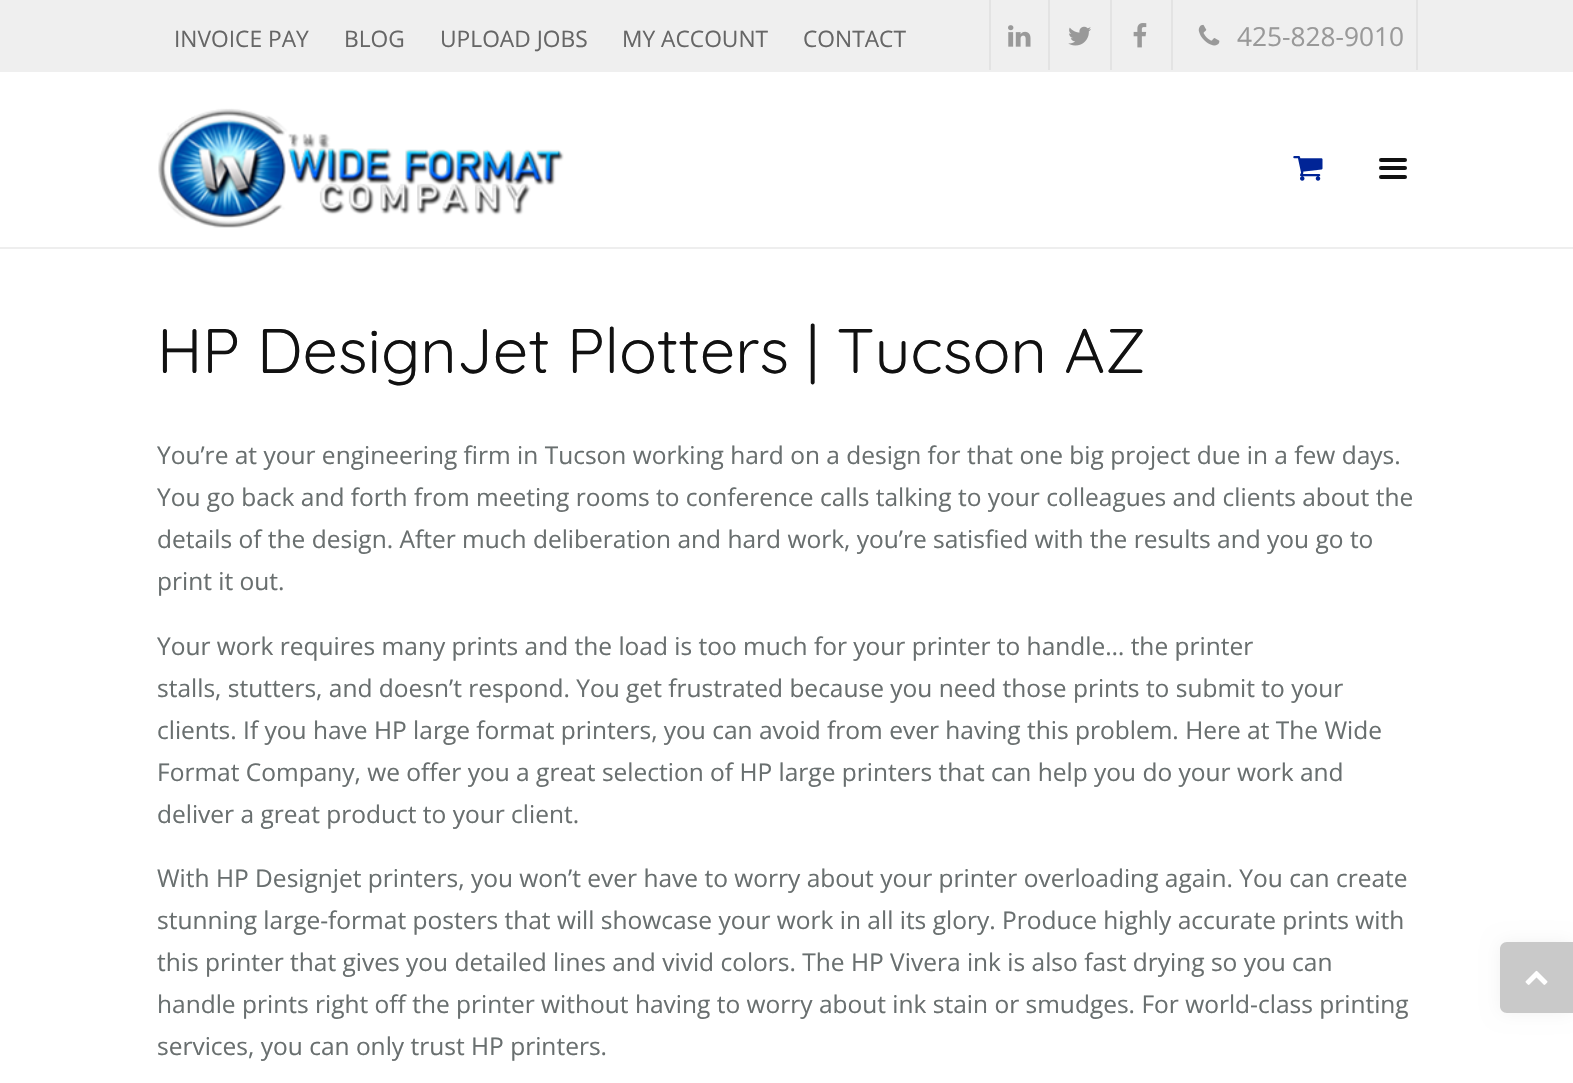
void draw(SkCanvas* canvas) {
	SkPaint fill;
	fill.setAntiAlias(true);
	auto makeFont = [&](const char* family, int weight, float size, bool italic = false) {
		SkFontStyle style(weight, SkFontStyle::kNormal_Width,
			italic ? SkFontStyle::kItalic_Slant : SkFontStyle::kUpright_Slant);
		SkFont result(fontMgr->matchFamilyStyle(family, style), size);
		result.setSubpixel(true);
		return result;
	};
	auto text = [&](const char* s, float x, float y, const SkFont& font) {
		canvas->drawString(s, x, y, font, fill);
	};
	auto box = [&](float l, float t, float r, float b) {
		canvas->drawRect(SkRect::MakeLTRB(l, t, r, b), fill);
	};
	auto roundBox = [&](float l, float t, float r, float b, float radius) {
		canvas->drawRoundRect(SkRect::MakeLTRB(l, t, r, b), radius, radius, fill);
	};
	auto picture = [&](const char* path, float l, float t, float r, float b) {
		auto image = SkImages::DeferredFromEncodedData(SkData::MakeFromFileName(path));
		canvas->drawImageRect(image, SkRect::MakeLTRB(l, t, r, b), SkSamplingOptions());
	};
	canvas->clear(0xFFFFFFFF);
	fill.setColor(0xFFEFEFEF);
	box(0, 0, 1573, 72);
	fill.setColor(0xFFE3E3E3);
	box(1048, 0, 1050, 70);
	box(989, 0, 991, 70);
	picture("image0.png", 1008, 25, 1031, 47);
	box(1110, 0, 1112, 70);
	picture("image1.png", 1068, 26, 1091, 46);
	box(1171, 0, 1173, 70);
	picture("image2.png", 1133, 23, 1147, 48);
	box(1416, 0, 1418, 70);
	picture("image3.png", 1198, 24, 1220, 46);
	fill.setColor(0xFFEEEEEE);
	box(0, 247, 1573, 249);
	picture("image4.png", 158, 108, 564, 228);
	picture("image5.png", 1293, 156, 1323, 181);
	fill.setColor(0xFF111111);
	roundBox(1379, 166, 1407, 170, 2);
	roundBox(1379, 158, 1407, 162, 2);
	roundBox(1379, 175, 1407, 179, 2);
	fill.setColor(0x0D000000);
	fill.setMaskFilter(SkMaskFilter::MakeBlur(kNormal_SkBlurStyle, 9));
	canvas->drawRoundRect(SkRect::MakeLTRB(1500, 942, 1573, 1013), 7, 7, fill);
	fill.setMaskFilter(nullptr);
	fill.setColor(0xFFC9C9C9);
	canvas->drawPath(SkPathBuilder().moveTo(1507, 942).lineTo(1573, 942).lineTo(1573, 1013).lineTo(1507, 1013).cubicTo(1503, 1013, 1500, 1010, 1500, 1006).lineTo(1500, 949).cubicTo(1500, 945, 1503, 942, 1507, 942).close().detach(), fill);
	picture("image6.png", 1525, 970, 1548, 985);
	auto font1 = makeFont("Open Sans", 400, 22.75f);
	fill.setColor(0xFF666666);
	text("INVOICE PAY", 174, 47, font1);
	text("BLOG", 344, 47, font1);
	text("UPLOAD JOBS", 440, 47, font1);
	text("MY ACCOUNT", 622, 47, font1);
	text("CONTACT", 803, 47, font1);
	auto font2 = makeFont("Open Sans", 400, 26.25f);
	fill.setColor(0xFF999999);
	text("425-828-9010", 1237, 46, font2);
	auto font3 = makeFont("Quicksand", 400, 63);
	fill.setColor(0xFF111111);
	text("HP DesignJet Plotters | Tucson AZ", 157, 373, font3);
	auto font4 = makeFont("Open Sans", 400, 24.5f);
	fill.setColor(0xFF696F6F);
	text("You’re at your engineering firm in Tucson working hard on a design for that one big project due in a few days.", 157, 464, font4);
	text("You go back and forth from meeting rooms to conference calls talking to your colleagues and clients about the", 157, 506, font4);
	text("details of the design. After much deliberation and hard work, you’re satisfied with the results and you go to", 157, 548, font4);
	text("print it out.", 157, 590, font4);
	text("Your work requires many prints and the load is too much for your printer to handle… the printer", 157, 655, font4);
	text("stalls, stutters, and doesn’t respond. You get frustrated because you need those prints to submit to your", 157, 697, font4);
	text("clients. If you have HP large format printers, you can avoid from ever having this problem. Here at The Wide", 157, 739, font4);
	text("Format Company, we offer you a great selection of HP large printers that can help you do your work and", 157, 781, font4);
	text("deliver a great product to your client.", 157, 823, font4);
	text("With HP Designjet printers, you won’t ever have to worry about your printer overloading again. You can create", 157, 887, font4);
	text("stunning large-format posters that will showcase your work in all its glory. Produce highly accurate prints with", 157, 929, font4);
	text("this printer that gives you detailed lines and vivid colors. The HP Vivera ink is also fast drying so you can", 157, 971, font4);
	text("handle prints right off the printer without having to worry about ink stain or smudges. For world-class printing", 157, 1013, font4);
	text("services, you can only trust HP printers.", 157, 1055, font4);
}
